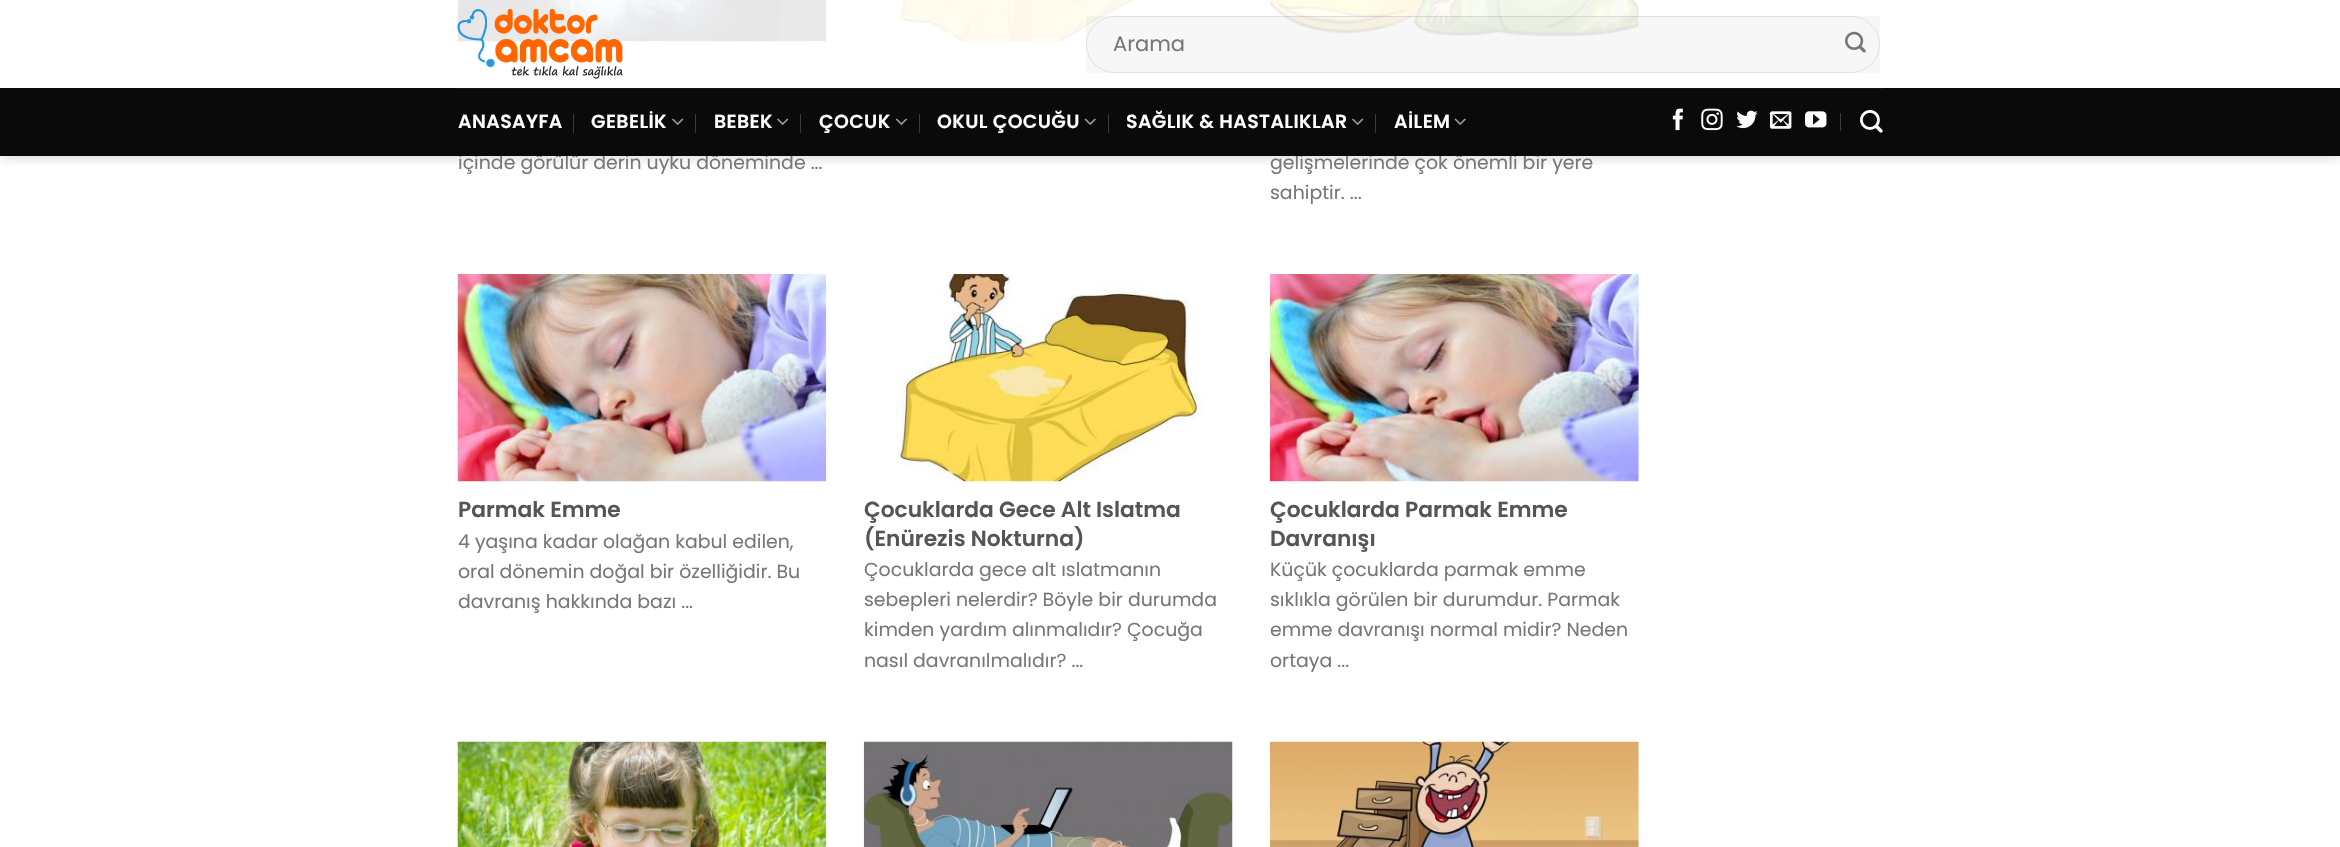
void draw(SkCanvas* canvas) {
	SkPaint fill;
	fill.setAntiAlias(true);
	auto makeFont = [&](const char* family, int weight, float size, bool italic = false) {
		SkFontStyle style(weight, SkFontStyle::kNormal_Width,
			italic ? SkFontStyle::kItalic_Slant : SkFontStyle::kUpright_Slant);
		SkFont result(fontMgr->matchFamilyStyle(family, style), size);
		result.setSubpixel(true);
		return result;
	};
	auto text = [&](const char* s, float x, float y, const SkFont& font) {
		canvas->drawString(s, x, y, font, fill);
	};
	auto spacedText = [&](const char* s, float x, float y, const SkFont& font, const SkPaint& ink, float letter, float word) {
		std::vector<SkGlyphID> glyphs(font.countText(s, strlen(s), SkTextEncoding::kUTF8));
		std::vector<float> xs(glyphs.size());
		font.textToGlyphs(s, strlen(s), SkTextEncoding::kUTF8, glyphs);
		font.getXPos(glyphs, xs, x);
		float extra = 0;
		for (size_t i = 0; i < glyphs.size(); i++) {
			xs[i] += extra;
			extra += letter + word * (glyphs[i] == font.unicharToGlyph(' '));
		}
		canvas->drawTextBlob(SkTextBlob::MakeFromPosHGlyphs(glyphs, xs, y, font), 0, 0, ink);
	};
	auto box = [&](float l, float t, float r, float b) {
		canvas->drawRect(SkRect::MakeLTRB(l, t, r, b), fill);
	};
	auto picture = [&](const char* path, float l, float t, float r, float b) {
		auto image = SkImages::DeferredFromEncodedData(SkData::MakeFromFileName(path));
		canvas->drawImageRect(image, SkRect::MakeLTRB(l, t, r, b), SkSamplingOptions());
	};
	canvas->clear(0xFFFFFFFF);
	picture("image11.png", 893, 0, 1158, 42);
	picture("image12.png", 457, 0, 827, 42);
	picture("image13.png", 1270, 0, 1639, 42);
	canvas->save();
	canvas->clipRect(SkRect::MakeLTRB(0, 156, 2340, 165));
	fill.setColor(0x26000000);
	fill.setMaskFilter(SkMaskFilter::MakeBlur(kNormal_SkBlurStyle, 6));
	canvas->drawRect(SkRect::MakeLTRB(1, 1, 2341, 158), fill);
	fill.setMaskFilter(nullptr);
	canvas->restore();
	fill.setColor(0xE6FFFFFF);
	box(457, 0, 1639, 42);
	picture("image0.png", 457, 8, 623, 79);
	fill.setColor(0x08000000);
	box(1086, 16, 1880, 73);
	fill.setStyle(SkPaint::kStroke_Style);
	fill.setStrokeWidth(1);
	fill.setColor(0x17000000);
	canvas->drawRoundRect(SkRect::MakeLTRB(1086.5f, 16.5f, 1879.5f, 72.5f), 28, 28, fill);
	picture("image1.png", 1845, 31, 1866, 53);
	picture("image14.png", 457, 274, 827, 482);
	picture("image15.png", 895, 274, 1203, 482);
	picture("image16.png", 1270, 274, 1639, 482);
	picture("image17.png", 457, 741, 827, 847);
	picture("image18.png", 863, 741, 1233, 847);
	picture("image19.png", 1270, 741, 1639, 847);
	auto font1 = makeFont("Poppins", 400, 21);
	fill.setStyle(SkPaint::kFill_Style);
	fill.setColor(0xFF777777);
	text("Arama", 1113, 51, font1);
	auto font2 = makeFont("Poppins", 400, 18.9f);
	text("içinde görülür derin uyku döneminde ...", 458, 169, font2);
	text("gelişmelerinde çok önemli bir yere", 1270, 169, font2);
	fill.setColor(0xFF0A0A0A);
	box(0, 88, 2340, 156);
	fill.setColor(0xFF151515);
	box(458, 88, 1883, 89);
	fill.setColor(0xFF3B3B3B);
	box(1840, 113, 1841, 131);
	picture("image10.png", 1860, 110, 1883, 133);
	picture("image9.png", 1805, 111, 1827, 128);
	picture("image8.png", 1770, 111, 1792, 129);
	picture("image7.png", 1736, 110, 1758, 129);
	picture("image6.png", 1701, 108, 1723, 131);
	picture("image5.png", 1672, 108, 1683, 131);
	box(1375, 114, 1376, 133);
	picture("image4.png", 1454, 118, 1466, 125);
	auto font3 = makeFont("Poppins", 600, 18.9f);
	fill.setColor(0xFFFFFFFF);
	spacedText("AİLEM", 1394, 128, font3, fill, 0.4f, 0);
	fill.setColor(0xFF3B3B3B);
	box(1108, 114, 1109, 133);
	picture("image2.png", 1352, 118, 1364, 125);
	fill.setColor(0xFFFFFFFF);
	spacedText("SAĞLIK & HASTALIKLAR", 1126, 128, font3, fill, 0.4f, 0);
	fill.setColor(0xFF3B3B3B);
	box(919, 114, 920, 133);
	picture("image4.png", 1084, 118, 1096, 125);
	fill.setColor(0xFFFFFFFF);
	spacedText("OKUL ÇOCUĞU", 937, 128, font3, fill, 0.4f, 0);
	fill.setColor(0xFF3B3B3B);
	box(800, 114, 801, 133);
	picture("image3.png", 895, 118, 907, 125);
	fill.setColor(0xFFFFFFFF);
	spacedText("ÇOCUK", 819, 128, font3, fill, 0.4f, 0);
	fill.setColor(0xFF3B3B3B);
	box(695, 114, 696, 133);
	picture("image2.png", 777, 118, 789, 125);
	fill.setColor(0xFFFFFFFF);
	spacedText("BEBEK", 714, 128, font3, fill, 0.4f, 0);
	fill.setColor(0xFF3B3B3B);
	box(573, 114, 574, 133);
	picture("image2.png", 672, 118, 684, 125);
	fill.setColor(0xFFFFFFFF);
	spacedText("GEBELİK", 591, 128, font3, fill, 0.4f, 0);
	spacedText("ANASAYFA", 458, 128, font3, fill, 0.4f, 0);
	fill.setColor(0xFF777777);
	text("sahiptir. ...", 1270, 199, font2);
	auto font4 = makeFont("Poppins", 600, 21.75f);
	fill.setColor(0xFF555555);
	text("Parmak Emme", 458, 517, font4);
	fill.setColor(0xFF777777);
	text("4 yaşına kadar olağan kabul edilen,", 458, 548, font2);
	text("oral dönemin doğal bir özelliğidir. Bu", 458, 578, font2);
	text("davranış hakkında bazı ...", 458, 608, font2);
	fill.setColor(0xFF555555);
	text("Çocuklarda Gece Alt Islatma", 864, 517, font4);
	text("(Enürezis Nokturna)", 864, 546, font4);
	fill.setColor(0xFF777777);
	text("Çocuklarda gece alt ıslatmanın", 864, 576, font2);
	text("sebepleri nelerdir? Böyle bir durumda", 864, 606, font2);
	text("kimden yardım alınmalıdır? Çocuğa", 864, 636, font2);
	text("nasıl davranılmalıdır? ...", 864, 667, font2);
	fill.setColor(0xFF555555);
	text("Çocuklarda Parmak Emme", 1270, 517, font4);
	text("Davranışı", 1270, 546, font4);
	fill.setColor(0xFF777777);
	text("Küçük çocuklarda parmak emme", 1270, 576, font2);
	text("sıklıkla görülen bir durumdur. Parmak", 1270, 606, font2);
	text("emme davranışı normal midir? Neden", 1270, 636, font2);
	text("ortaya ...", 1270, 667, font2);
}
